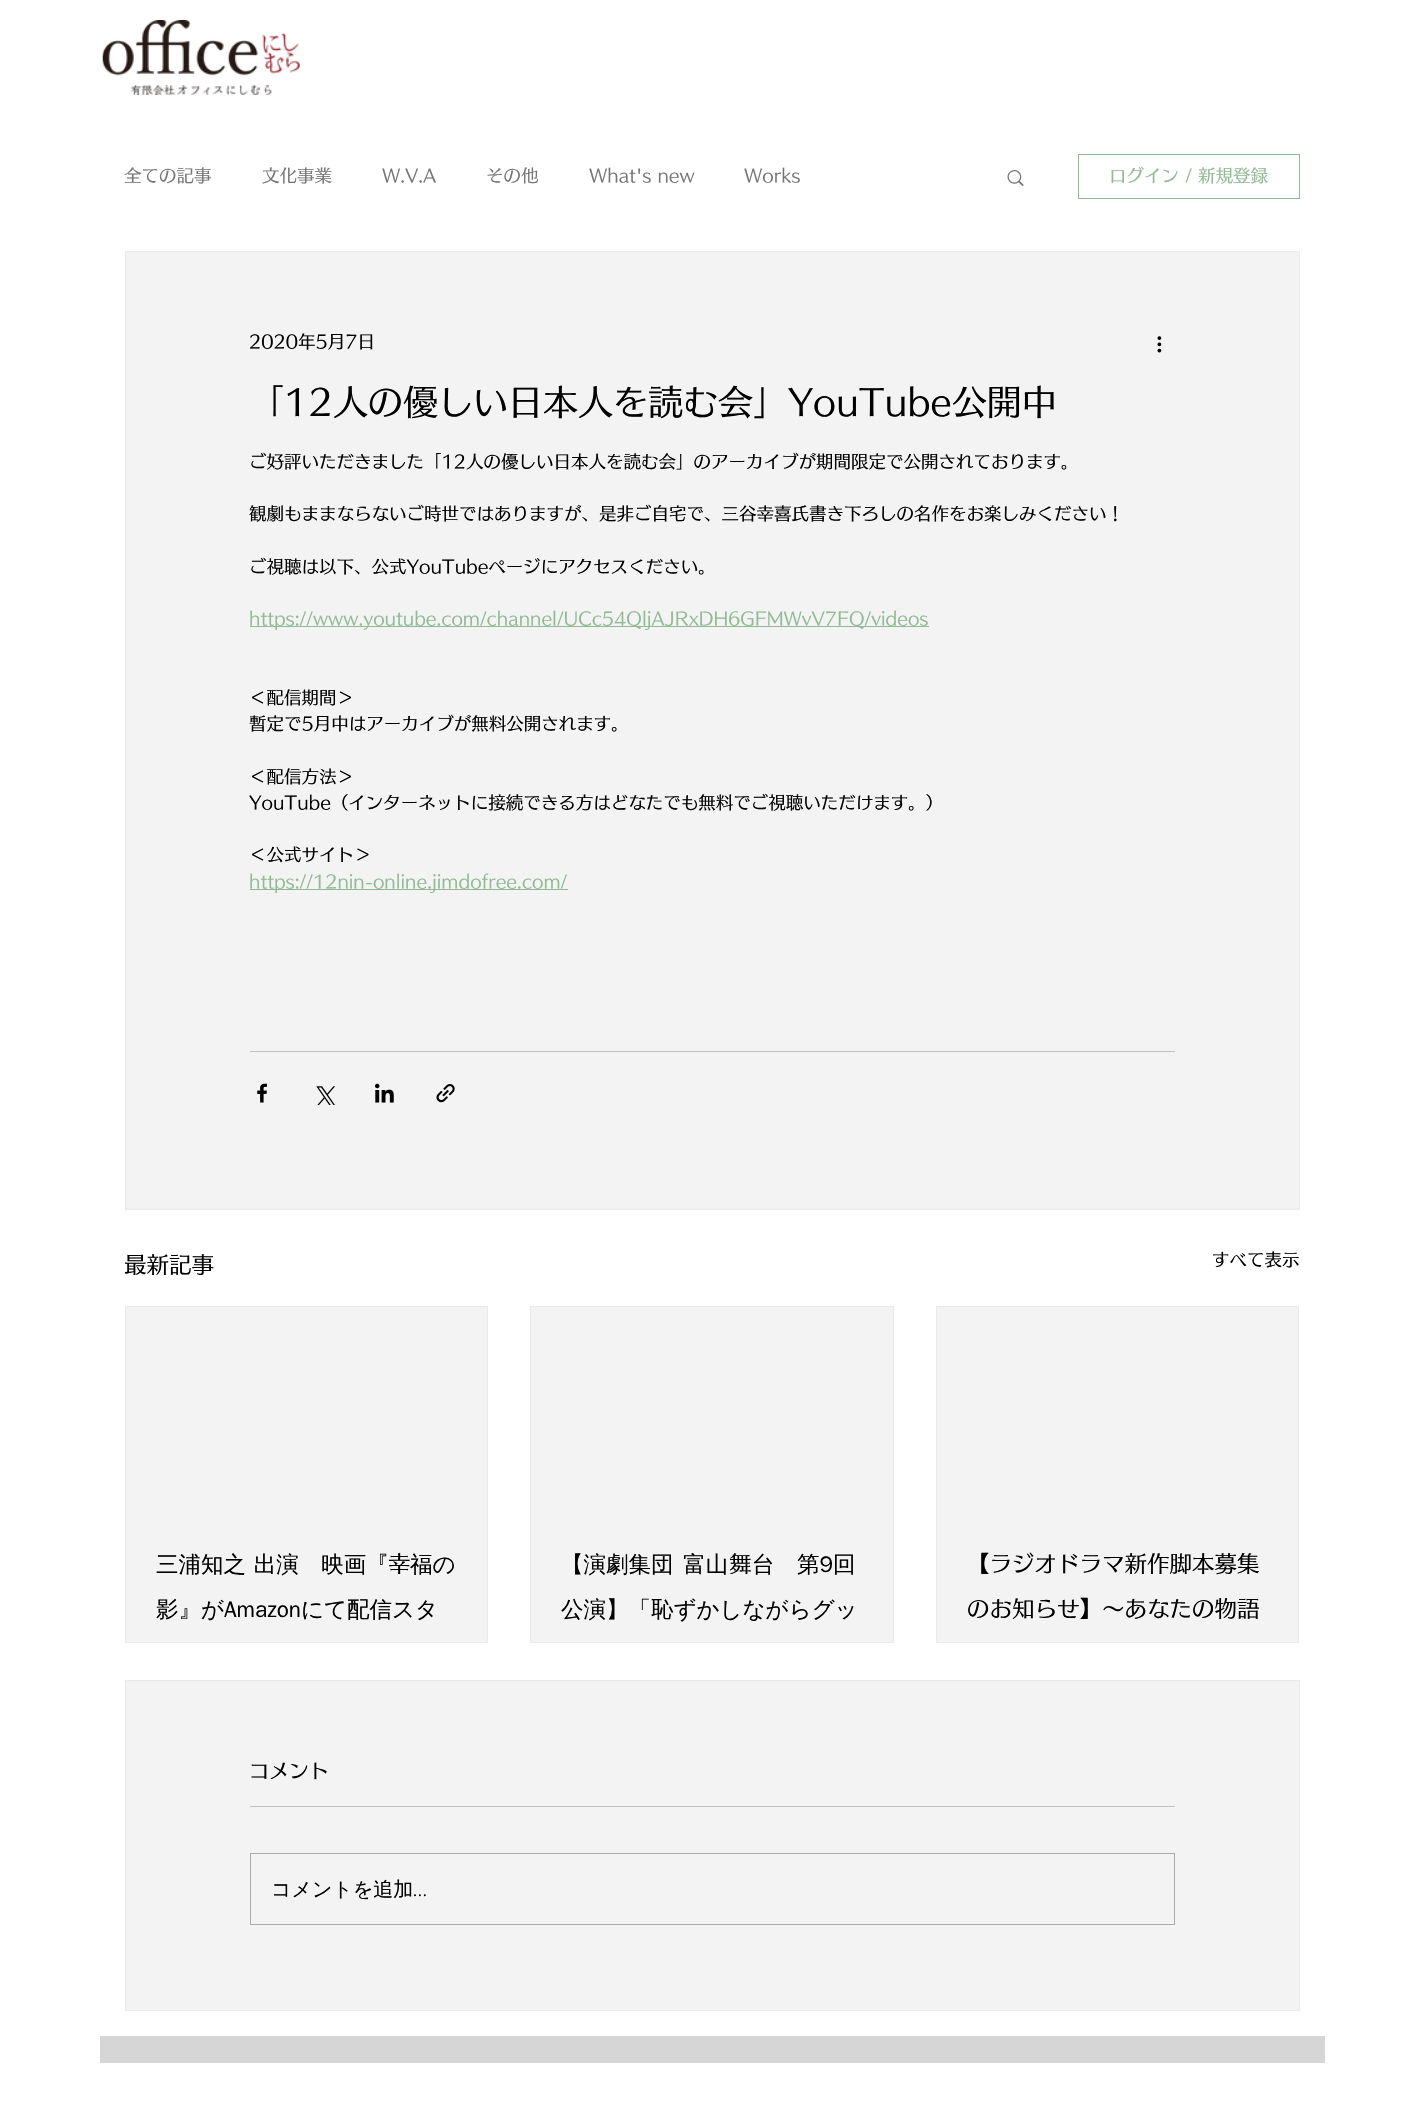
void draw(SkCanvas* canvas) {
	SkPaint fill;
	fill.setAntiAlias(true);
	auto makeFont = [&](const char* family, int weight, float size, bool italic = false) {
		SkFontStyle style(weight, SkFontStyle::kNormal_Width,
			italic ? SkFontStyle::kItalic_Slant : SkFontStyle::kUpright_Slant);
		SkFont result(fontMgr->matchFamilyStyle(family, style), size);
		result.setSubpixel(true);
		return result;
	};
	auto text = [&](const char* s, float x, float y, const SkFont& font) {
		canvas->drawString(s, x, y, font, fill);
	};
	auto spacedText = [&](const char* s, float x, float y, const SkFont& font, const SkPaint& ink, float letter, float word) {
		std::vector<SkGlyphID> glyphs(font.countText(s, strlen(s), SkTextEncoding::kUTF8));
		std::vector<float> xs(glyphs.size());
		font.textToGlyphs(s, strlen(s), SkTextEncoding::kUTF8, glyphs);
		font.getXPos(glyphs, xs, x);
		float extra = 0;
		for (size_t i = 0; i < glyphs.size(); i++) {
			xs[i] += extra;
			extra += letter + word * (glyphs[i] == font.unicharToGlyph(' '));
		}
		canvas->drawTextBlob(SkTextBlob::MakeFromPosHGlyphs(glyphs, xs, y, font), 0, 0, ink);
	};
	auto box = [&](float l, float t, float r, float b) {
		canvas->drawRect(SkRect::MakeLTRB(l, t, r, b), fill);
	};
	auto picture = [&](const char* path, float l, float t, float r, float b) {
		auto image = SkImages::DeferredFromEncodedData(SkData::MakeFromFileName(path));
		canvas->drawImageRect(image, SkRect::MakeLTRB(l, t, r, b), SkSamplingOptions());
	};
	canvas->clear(0xFFFFFFFF);
	picture("image0.png", 102, 20, 300, 95);
	picture("image1.png", 1007, 170, 1024, 187);
	fill.setStyle(SkPaint::kStroke_Style);
	fill.setStrokeWidth(1);
	fill.setColor(0xFF8FBA93);
	canvas->drawRect(SkRect::MakeLTRB(1078.5f, 154.5f, 1299.5f, 198.5f), fill);
	fill.setStyle(SkPaint::kFill_Style);
	fill.setColor(0xFFF3F3F3);
	canvas->drawRect(SkRect::MakeLTRB(125.5f, 251.5f, 1299.5f, 1209.5f), fill);
	fill.setStyle(SkPaint::kStroke_Style);
	fill.setColor(0xFFEBE9E9);
	canvas->drawRect(SkRect::MakeLTRB(125.5f, 251.5f, 1299.5f, 1209.5f), fill);
	picture("image2.png", 1157, 336, 1162, 353);
	fill.setStyle(SkPaint::kFill_Style);
	fill.setColor(0xFF8FBA93);
	box(250, 626, 929, 627);
	box(250, 889, 568, 890);
	fill.setColor(0xFFC2C2C2);
	box(250, 1051, 1175, 1052);
	picture("image3.png", 257, 1083, 267, 1103);
	picture("image4.png", 316, 1086, 335, 1105);
	picture("image5.png", 375, 1083, 394, 1103);
	picture("image6.png", 436, 1084, 455, 1103);
	fill.setColor(0xFFF3F3F3);
	canvas->drawRect(SkRect::MakeLTRB(125.5f, 1306.5f, 487.5f, 1642.5f), fill);
	fill.setStyle(SkPaint::kStroke_Style);
	fill.setColor(0xFFEBE9E9);
	canvas->drawRect(SkRect::MakeLTRB(125.5f, 1306.5f, 487.5f, 1642.5f), fill);
	fill.setStyle(SkPaint::kFill_Style);
	fill.setColor(0xFFF3F3F3);
	canvas->drawRect(SkRect::MakeLTRB(530.5f, 1306.5f, 893.5f, 1642.5f), fill);
	fill.setStyle(SkPaint::kStroke_Style);
	fill.setColor(0xFFEBE9E9);
	canvas->drawRect(SkRect::MakeLTRB(530.5f, 1306.5f, 893.5f, 1642.5f), fill);
	fill.setStyle(SkPaint::kFill_Style);
	fill.setColor(0xFFF3F3F3);
	canvas->drawRect(SkRect::MakeLTRB(936.5f, 1306.5f, 1298.5f, 1642.5f), fill);
	fill.setStyle(SkPaint::kStroke_Style);
	fill.setColor(0xFFEBE9E9);
	canvas->drawRect(SkRect::MakeLTRB(936.5f, 1306.5f, 1298.5f, 1642.5f), fill);
	fill.setStyle(SkPaint::kFill_Style);
	fill.setColor(0xFFF3F3F3);
	canvas->drawRect(SkRect::MakeLTRB(125.5f, 1680.5f, 1299.5f, 2010.5f), fill);
	fill.setStyle(SkPaint::kStroke_Style);
	fill.setColor(0xFFEBE9E9);
	canvas->drawRect(SkRect::MakeLTRB(125.5f, 1680.5f, 1299.5f, 2010.5f), fill);
	fill.setStyle(SkPaint::kFill_Style);
	fill.setColor(0xFFC2C2C2);
	box(250, 1806, 1175, 1807);
	fill.setStyle(SkPaint::kStroke_Style);
	fill.setColor(0xFFAAAAAA);
	canvas->drawRect(SkRect::MakeLTRB(250.5f, 1853.5f, 1174.5f, 1924.5f), fill);
	fill.setStyle(SkPaint::kFill_Style);
	fill.setColor(0xFFD6D6D6);
	box(100, 2036, 1325, 2063);
	auto font1 = makeFont("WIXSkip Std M", 500, 17.5f);
	fill.setColor(0xFF757575);
	text("全ての記事", 124, 182, font1);
	text("文化事業", 262, 182, font1);
	text("W.V.A", 382, 182, font1);
	text("その他", 486, 182, font1);
	text("What's new", 589, 182, font1);
	text("Works", 744, 182, font1);
	fill.setColor(0xFF8FBA93);
	text("ログイン / 新規登録", 1109, 182, font1);
	fill.setColor(0xFF000000);
	text("2020年5月7日", 249, 348, font1);
	auto font2 = makeFont("WIXSkip Std M", 500, 35);
	text("「12人の優しい日本人を読む会」YouTube公開中", 249, 415, font2);
	text("ご好評いただきました「12人の優しい日本人を読む会」のアーカイブが期間限定で公開されております。", 249, 468, font1);
	text("観劇もままならないご時世ではありますが、是非ご自宅で、三谷幸喜氏書き下ろしの名作をお楽しみください！", 249, 520, font1);
	text("ご視聴は以下、公式YouTubeページにアクセスください。", 249, 573, font1);
	fill.setColor(0xFF8FBA93);
	text("https://www.youtube.com/channel/UCc54QljAJRxDH6GFMWvV7FQ/videos", 249, 625, font1);
	fill.setColor(0xFF000000);
	text("＜配信期間＞", 249, 704, font1);
	text("暫定で5月中はアーカイブが無料公開されます。", 249, 730, font1);
	text("＜配信方法＞", 249, 783, font1);
	text("YouTube（インターネットに接続できる方はどなたでも無料でご視聴いただけます。）", 249, 809, font1);
	text("＜公式サイト＞", 249, 861, font1);
	fill.setColor(0xFF8FBA93);
	text("https://12nin-online.jimdofree.com/", 249, 888, font1);
	auto font3 = makeFont("WIXSkip Std M", 500, 22.5f);
	fill.setColor(0xFF000000);
	text("最新記事", 124, 1273, font3);
	text("すべて表示", 1212, 1266, font1);
	auto font4 = makeFont("WenQuanYi Zen Hei", 500, 22.5f);
	spacedText("三浦知之 出演　映画『", 156, 1572, font4, fill, 0, 1);
	text("幸", 388, 1572, font3);
	text("福の", 410, 1572, font4);
	text("影』がAmazonにて配信スタ", 156, 1617, font4);
	spacedText("【演劇集団 富山", 561, 1572, font4, fill, 0, 3);
	text("舞", 729, 1572, font3);
	text("台　第9回", 752, 1572, font4);
	text("公演】「恥ずかしながらグッ", 561, 1617, font4);
	text("【ラジオドラマ新作脚本募集", 967, 1572, font3);
	text("のお知らせ】～あなたの物語", 967, 1617, font3);
	auto font5 = makeFont("WIXSkip Std M", 500, 20);
	text("コメント", 249, 1778, font5);
	auto font6 = makeFont("WenQuanYi Zen Hei", 500, 20);
	text("コメントを追加", 271, 1896, font6);
	auto font7 = makeFont("Lato", 300, 20);
	text("…", 413, 1896, font7);
}
